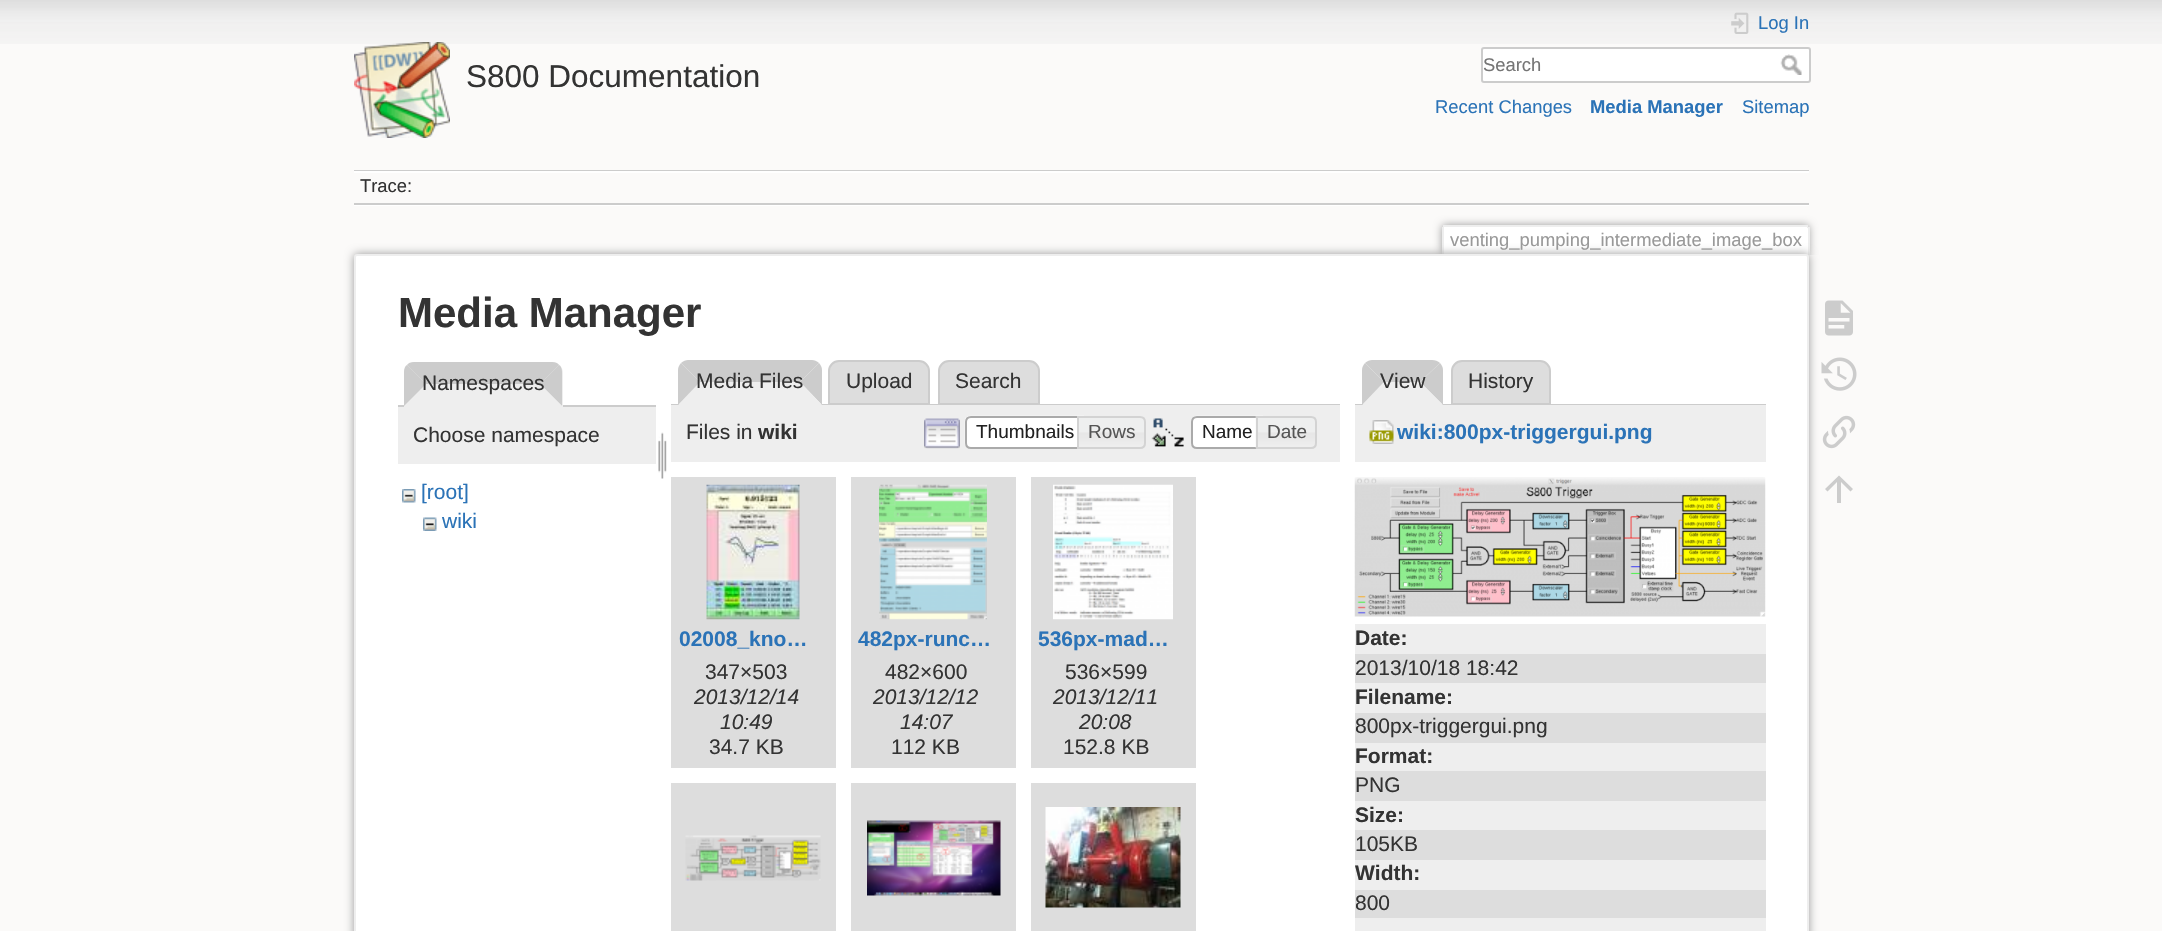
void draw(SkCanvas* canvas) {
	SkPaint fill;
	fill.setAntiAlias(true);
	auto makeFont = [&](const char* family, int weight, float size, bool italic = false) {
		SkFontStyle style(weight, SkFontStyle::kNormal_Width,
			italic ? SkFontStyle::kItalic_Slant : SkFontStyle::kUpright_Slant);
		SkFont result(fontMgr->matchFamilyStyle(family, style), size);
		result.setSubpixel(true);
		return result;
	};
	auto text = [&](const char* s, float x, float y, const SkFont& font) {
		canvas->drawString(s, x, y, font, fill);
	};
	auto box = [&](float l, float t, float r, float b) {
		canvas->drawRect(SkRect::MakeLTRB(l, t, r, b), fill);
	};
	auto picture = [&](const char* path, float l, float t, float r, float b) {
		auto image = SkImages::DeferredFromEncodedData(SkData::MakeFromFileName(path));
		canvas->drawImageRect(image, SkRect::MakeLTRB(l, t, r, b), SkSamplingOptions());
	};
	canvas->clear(0xFFFBFAF9);
	picture("image0.png", 0, 0, 2162, 44);
	picture("image1.png", 354, 42, 450, 138);
	picture("image2.png", 1731, 12, 1749, 34);
	fill.setColor(0xFFFFFFFF);
	canvas->drawRoundRect(SkRect::MakeLTRB(1482, 48, 1810, 82), 2, 2, fill);
	fill.setStyle(SkPaint::kStroke_Style);
	fill.setStrokeWidth(2);
	fill.setColor(0xFFCCCCCC);
	canvas->drawRoundRect(SkRect::MakeLTRB(1482, 48, 1810, 82), 2, 2, fill);
	picture("image3.png", 1780, 54, 1802, 75);
	fill.setStyle(SkPaint::kFill_Style);
	box(354, 170, 1809, 171);
	fill.setColor(0xFFFFFFFF);
	box(354, 205, 1809, 206);
	box(354, 171, 1809, 173);
	fill.setColor(0xFFCCCCCC);
	box(354, 203, 1809, 205);
	canvas->save();
	canvas->clipRect(SkRect::MakeLTRB(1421, 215, 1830, 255));
	fill.setColor(0xFF999999);
	fill.setMaskFilter(SkMaskFilter::MakeBlur(kNormal_SkBlurStyle, 4.5f));
	canvas->drawRoundRect(SkRect::MakeLTRB(1442, 225, 1809, 255), 3, 3, fill);
	fill.setMaskFilter(nullptr);
	canvas->restore();
	fill.setColor(0xFFFFFFFF);
	canvas->drawPath(SkPathBuilder().moveTo(1444.5f, 227).lineTo(1806.5f, 227).cubicTo(1807.5f, 227, 1808, 227.5f, 1808, 228.5f).lineTo(1808, 255).lineTo(1443, 255).lineTo(1443, 228.5f).cubicTo(1443, 227.5f, 1443.5f, 227, 1444.5f, 227).close().detach(), fill);
	fill.setColor(0xFFEEEEEE);
	box(1443, 225, 1808, 227);
	box(1808, 227, 1810, 255);
	box(1442, 227, 1444, 255);
	fill.setColor(0xFF999999);
	fill.setMaskFilter(SkMaskFilter::MakeBlur(kNormal_SkBlurStyle, 5));
	canvas->drawRoundRect(SkRect::MakeLTRB(354, 254, 1809, 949), 3, 3, fill);
	fill.setMaskFilter(nullptr);
	fill.setColor(0xFFFFFFFF);
	canvas->drawRoundRect(SkRect::MakeLTRB(355, 255, 1808, 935), 2, 2, fill);
	fill.setStyle(SkPaint::kStroke_Style);
	fill.setColor(0xFFEEEEEE);
	canvas->drawRoundRect(SkRect::MakeLTRB(355, 255, 1808, 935), 2, 2, fill);
	fill.setStyle(SkPaint::kFill_Style);
	fill.setColor(0xFFCCCCCC);
	box(398, 405, 656, 407);
	fill.setColor(0xFFEEEEEE);
	canvas->drawPath(SkPathBuilder().moveTo(415, 362).lineTo(552, 362).cubicTo(558, 362, 563, 367, 563, 373).lineTo(563, 407).lineTo(404, 407).lineTo(404, 373).cubicTo(404, 367, 409, 362, 415, 362).close().detach(), fill);
	fill.setColor(0xFFCCCCCC);
	canvas->drawPath(SkPathBuilder().moveTo(414, 362).cubicTo(411, 362, 408, 363, 407, 365).lineTo(426, 384).lineTo(540, 384).lineTo(559, 365).cubicTo(558, 363, 555, 362, 552, 362).close().detach(), fill);
	canvas->drawPath(SkPathBuilder().moveTo(562, 406).lineTo(562, 372).cubicTo(562, 369, 561, 366, 559, 365).lineTo(540, 384).close().detach(), fill);
	fill.setColor(0xFFEEEEEE);
	canvas->drawPath(SkPathBuilder().moveTo(562, 406).lineTo(540, 384).lineTo(426, 384).lineTo(404, 406).close().detach(), fill);
	fill.setColor(0xFFCCCCCC);
	canvas->drawPath(SkPathBuilder().moveTo(407, 365).cubicTo(405, 366, 404, 369, 404, 372).lineTo(404, 406).lineTo(426, 384).close().detach(), fill);
	fill.setColor(0xFFEEEEEE);
	box(398, 407, 656, 464);
	picture("image4.png", 658, 432, 667, 479);
	picture("image5.png", 402, 489, 416, 503);
	picture("image6.png", 423, 517, 437, 531);
	fill.setColor(0xFFCCCCCC);
	canvas->drawPath(SkPathBuilder().moveTo(688, 360).lineTo(812, 360).cubicTo(814, 360, 817, 361, 819, 363).lineTo(800, 382).lineTo(700, 382).lineTo(681, 363).cubicTo(683, 361, 686, 360, 688, 360).close().detach(), fill);
	fill.setColor(0xFFDDDDDD);
	canvas->drawPath(SkPathBuilder().moveTo(839, 361).lineTo(919, 361).cubicTo(924.5f, 361, 929, 365.5f, 929, 371).lineTo(929, 404).lineTo(829, 404).lineTo(829, 371).cubicTo(829, 365.5f, 833.5f, 361, 839, 361).close().detach(), fill);
	fill.setStyle(SkPaint::kStroke_Style);
	fill.setColor(0xFFCCCCCC);
	canvas->drawPath(SkPathBuilder().moveTo(839, 361).lineTo(919, 361).cubicTo(924.5f, 361, 929, 365.5f, 929, 371).lineTo(929, 404).lineTo(829, 404).lineTo(829, 371).cubicTo(829, 365.5f, 833.5f, 361, 839, 361).close().detach(), fill);
	fill.setStyle(SkPaint::kFill_Style);
	fill.setColor(0xFFDDDDDD);
	canvas->drawPath(SkPathBuilder().moveTo(949, 361).lineTo(1029, 361).cubicTo(1034.5f, 361, 1039, 365.5f, 1039, 371).lineTo(1039, 404).lineTo(939, 404).lineTo(939, 371).cubicTo(939, 365.5f, 943.5f, 361, 949, 361).close().detach(), fill);
	fill.setStyle(SkPaint::kStroke_Style);
	fill.setColor(0xFFCCCCCC);
	canvas->drawPath(SkPathBuilder().moveTo(949, 361).lineTo(1029, 361).cubicTo(1034.5f, 361, 1039, 365.5f, 1039, 371).lineTo(1039, 404).lineTo(939, 404).lineTo(939, 371).cubicTo(939, 365.5f, 943.5f, 361, 949, 361).close().detach(), fill);
	fill.setStyle(SkPaint::kFill_Style);
	box(671, 404, 1340, 405);
	canvas->drawPath(SkPathBuilder().moveTo(819, 363).lineTo(800, 382).lineTo(822, 405).lineTo(822, 370).cubicTo(822, 368, 821, 365, 819, 363).close().detach(), fill);
	fill.setColor(0xFFEEEEEE);
	canvas->drawPath(SkPathBuilder().moveTo(822, 405).lineTo(800, 382).lineTo(700, 382).lineTo(678, 405).close().detach(), fill);
	fill.setColor(0xFFCCCCCC);
	canvas->drawPath(SkPathBuilder().moveTo(678, 405).lineTo(678, 370).cubicTo(678, 368, 679, 365, 681, 363).lineTo(700, 382).close().detach(), fill);
	fill.setColor(0xFFEEEEEE);
	box(671, 405, 1340, 462);
	picture("image7.png", 924, 418, 960, 449);
	fill.setColor(0xFFFFFFFF);
	canvas->drawPath(SkPathBuilder().moveTo(971, 416).lineTo(1085, 416).lineTo(1085, 449).lineTo(971, 449).cubicTo(967.5f, 449, 965, 446.5f, 965, 443).lineTo(965, 422).cubicTo(965, 418.5f, 967.5f, 416, 971, 416).close().detach(), fill);
	picture("image8.png", 964, 415, 1084, 446);
	fill.setStyle(SkPaint::kStroke_Style);
	fill.setColor(0xFFAAAAAA);
	canvas->drawPath(SkPathBuilder().moveTo(971, 417).lineTo(1084, 417).lineTo(1084, 448).lineTo(971, 448).cubicTo(968, 448, 966, 446, 966, 443).lineTo(966, 422).cubicTo(966, 419, 968, 417, 971, 417).close().detach(), fill);
	picture("image9.png", 1079, 416, 1146, 448);
	fill.setColor(0xFFD3D3D3);
	canvas->drawPath(SkPathBuilder().moveTo(1078, 417).lineTo(1140, 417).cubicTo(1143, 417, 1145, 419, 1145, 422).lineTo(1145, 443).cubicTo(1145, 446, 1143, 448, 1140, 448).lineTo(1078, 448).close().detach(), fill);
	picture("image10.png", 1151, 418, 1184, 447);
	fill.setStyle(SkPaint::kFill_Style);
	fill.setColor(0xFFFFFFFF);
	canvas->drawPath(SkPathBuilder().moveTo(1197, 416).lineTo(1263, 416).lineTo(1263, 449).lineTo(1197, 449).cubicTo(1193.5f, 449, 1191, 446.5f, 1191, 443).lineTo(1191, 422).cubicTo(1191, 418.5f, 1193.5f, 416, 1197, 416).close().detach(), fill);
	picture("image11.png", 1191, 415, 1263, 420);
	fill.setStyle(SkPaint::kStroke_Style);
	fill.setColor(0xFFAAAAAA);
	canvas->drawPath(SkPathBuilder().moveTo(1197, 417).lineTo(1262, 417).lineTo(1262, 448).lineTo(1197, 448).cubicTo(1194, 448, 1192, 446, 1192, 443).lineTo(1192, 422).cubicTo(1192, 419, 1194, 417, 1197, 417).close().detach(), fill);
	picture("image12.png", 1255, 416, 1317, 449);
	fill.setColor(0xFFD3D3D3);
	canvas->drawPath(SkPathBuilder().moveTo(1257, 417).lineTo(1311, 417).cubicTo(1314, 417, 1316, 419, 1316, 422).lineTo(1316, 443).cubicTo(1316, 446, 1314, 448, 1311, 448).lineTo(1257, 448).close().detach(), fill);
	fill.setStyle(SkPaint::kFill_Style);
	fill.setColor(0xFFDDDDDD);
	box(671, 477, 836, 768);
	picture("image13.png", 706, 484, 800, 620);
	box(851, 477, 1016, 768);
	picture("image14.png", 879, 484, 987, 620);
	box(1031, 477, 1196, 768);
	picture("image15.png", 1053, 484, 1173, 620);
	box(671, 783, 836, 931);
	picture("image16.png", 685, 835, 821, 881);
	box(851, 783, 1016, 931);
	picture("image17.png", 867, 820, 1001, 896);
	box(1031, 783, 1196, 931);
	picture("image18.png", 1045, 807, 1181, 908);
	fill.setColor(0xFFCCCCCC);
	canvas->drawPath(SkPathBuilder().moveTo(1372, 360).lineTo(1432, 360).cubicTo(1435, 360, 1438, 361, 1440, 363).lineTo(1420, 382).lineTo(1384, 382).lineTo(1365, 363).cubicTo(1367, 361, 1370, 360, 1372, 360).close().detach(), fill);
	fill.setColor(0xFFDDDDDD);
	canvas->drawPath(SkPathBuilder().moveTo(1462, 361).lineTo(1540, 361).cubicTo(1545.5f, 361, 1550, 365.5f, 1550, 371).lineTo(1550, 404).lineTo(1452, 404).lineTo(1452, 371).cubicTo(1452, 365.5f, 1456.5f, 361, 1462, 361).close().detach(), fill);
	fill.setStyle(SkPaint::kStroke_Style);
	fill.setColor(0xFFCCCCCC);
	canvas->drawPath(SkPathBuilder().moveTo(1462, 361).lineTo(1540, 361).cubicTo(1545.5f, 361, 1550, 365.5f, 1550, 371).lineTo(1550, 404).lineTo(1452, 404).lineTo(1452, 371).cubicTo(1452, 365.5f, 1456.5f, 361, 1462, 361).close().detach(), fill);
	fill.setStyle(SkPaint::kFill_Style);
	box(1355, 404, 1766, 405);
	canvas->drawPath(SkPathBuilder().moveTo(1440, 363).lineTo(1420, 382).lineTo(1443, 405).lineTo(1443, 370).cubicTo(1443, 368, 1442, 365, 1440, 363).close().detach(), fill);
	fill.setColor(0xFFEEEEEE);
	canvas->drawPath(SkPathBuilder().moveTo(1443, 405).lineTo(1420, 382).lineTo(1384, 382).lineTo(1362, 405).close().detach(), fill);
	fill.setColor(0xFFCCCCCC);
	canvas->drawPath(SkPathBuilder().moveTo(1362, 405).lineTo(1362, 370).cubicTo(1362, 368, 1363, 365, 1365, 363).lineTo(1384, 382).close().detach(), fill);
	fill.setColor(0xFFEEEEEE);
	box(1355, 405, 1766, 462);
	picture("image19.png", 1369, 420, 1394, 444);
	picture("image20.png", 1354, 477, 1766, 617);
	box(1355, 624, 1766, 654);
	fill.setColor(0xFFDDDDDD);
	box(1355, 654, 1766, 683);
	fill.setColor(0xFFEEEEEE);
	box(1355, 683, 1766, 713);
	fill.setColor(0xFFDDDDDD);
	box(1355, 713, 1766, 743);
	fill.setColor(0xFFEEEEEE);
	box(1355, 743, 1766, 771);
	fill.setColor(0xFFDDDDDD);
	box(1355, 771, 1766, 801);
	fill.setColor(0xFFEEEEEE);
	box(1355, 801, 1766, 830);
	fill.setColor(0xFFDDDDDD);
	box(1355, 830, 1766, 860);
	fill.setColor(0xFFEEEEEE);
	box(1355, 860, 1766, 890);
	fill.setColor(0xFFDDDDDD);
	box(1355, 890, 1766, 918);
	fill.setColor(0xFFEEEEEE);
	box(1355, 918, 1766, 931);
	picture("image21.png", 1825, 300, 1853, 336);
	picture("image22.png", 1821, 357, 1857, 391);
	picture("image23.png", 1822, 415, 1856, 449);
	fill.setColor(0xFFCCCCCC);
	canvas->drawPath(SkPathBuilder().moveTo(1841, 503).lineTo(1837, 503).lineTo(1837, 482).lineTo(1827.5f, 491.5f).lineTo(1825, 489).lineTo(1839, 475.5f).lineTo(1853, 489).lineTo(1850.5f, 491.5f).lineTo(1841, 482).close().detach(), fill);
	auto font1 = makeFont("Liberation Sans", 400, 31.5f);
	fill.setColor(0xFF333333);
	text("S800 Documentation", 466, 87, font1);
	auto font2 = makeFont("Liberation Sans", 400, 18.4f);
	fill.setColor(0xFF2B73B7);
	text("Log In", 1758, 29, font2);
	fill.setColor(0xFF757575);
	text("Search", 1483, 71, font2);
	fill.setColor(0xFF2B73B7);
	text("Recent Changes", 1435, 113, font2);
	auto font3 = makeFont("Liberation Sans", 700, 18.4f);
	text("Media Manager", 1590, 113, font3);
	text("Sitemap", 1742, 113, font2);
	fill.setColor(0xFF333333);
	text("Trace:", 360, 192, font2);
	fill.setColor(0xFF999999);
	text("venting_pumping_intermediate_image_box", 1450, 246, font2);
	auto font4 = makeFont("Liberation Sans", 700, 42);
	fill.setColor(0xFF333333);
	text("Media Manager", 398, 327, font4);
	auto font5 = makeFont("Liberation Sans", 400, 21);
	text("Namespaces", 422, 390, font5);
	text("Choose namespace", 413, 442, font5);
	fill.setColor(0xFF2B73B7);
	text("[root]", 421, 499, font5);
	text("wiki", 442, 528, font5);
	fill.setColor(0xFF333333);
	text("Media Files", 696, 388, font5);
	text("Upload", 846, 388, font5);
	text("Search", 955, 388, font5);
	text("Files in", 686, 439, font5);
	auto font6 = makeFont("Liberation Sans", 700, 21);
	text("wiki", 758, 439, font6);
	auto font7 = makeFont("Liberation Sans", 400, 19);
	fill.setColor(0xFF212121);
	text("Thumbnails", 976, 438, font7);
	fill.setColor(0xFF555555);
	text("Rows", 1088, 438, font7);
	fill.setColor(0xFF212121);
	text("Name", 1202, 438, font7);
	fill.setColor(0xFF555555);
	text("Date", 1267, 438, font7);
	fill.setColor(0xFF2B73B7);
	text("02008_kno…", 679, 646, font6);
	fill.setColor(0xFF333333);
	text("347×503", 705, 679, font5);
	auto font8 = makeFont("Liberation Sans", 400, 21, true);
	text("2013/12/14", 694, 704, font8);
	text("10:49", 720, 729, font8);
	text("34.7 KB", 709, 754, font5);
	fill.setColor(0xFF2B73B7);
	text("482px-runc…", 858, 646, font6);
	fill.setColor(0xFF333333);
	text("482×600", 885, 679, font5);
	text("2013/12/12", 873, 704, font8);
	text("14:07", 900, 729, font8);
	text("112 KB", 891, 754, font5);
	fill.setColor(0xFF2B73B7);
	text("536px-mad…", 1038, 646, font6);
	fill.setColor(0xFF333333);
	text("536×599", 1065, 679, font5);
	text("2013/12/11", 1053, 704, font8);
	text("20:08", 1079, 729, font8);
	text("152.8 KB", 1063, 754, font5);
	text("View", 1380, 388, font5);
	text("History", 1468, 388, font5);
	fill.setColor(0xFF2B73B7);
	text("wiki:800px-triggergui.png", 1397, 439, font6);
	fill.setColor(0xFF333333);
	text("Date:", 1355, 645, font6);
	text("2013/10/18 18:42", 1355, 675, font5);
	text("Filename:", 1355, 704, font6);
	text("800px-triggergui.png", 1355, 733, font5);
	text("Format:", 1355, 763, font6);
	text("PNG", 1355, 792, font5);
	text("Size:", 1355, 822, font6);
	text("105KB", 1355, 851, font5);
	text("Width:", 1355, 880, font6);
	text("800", 1355, 910, font5);
}
